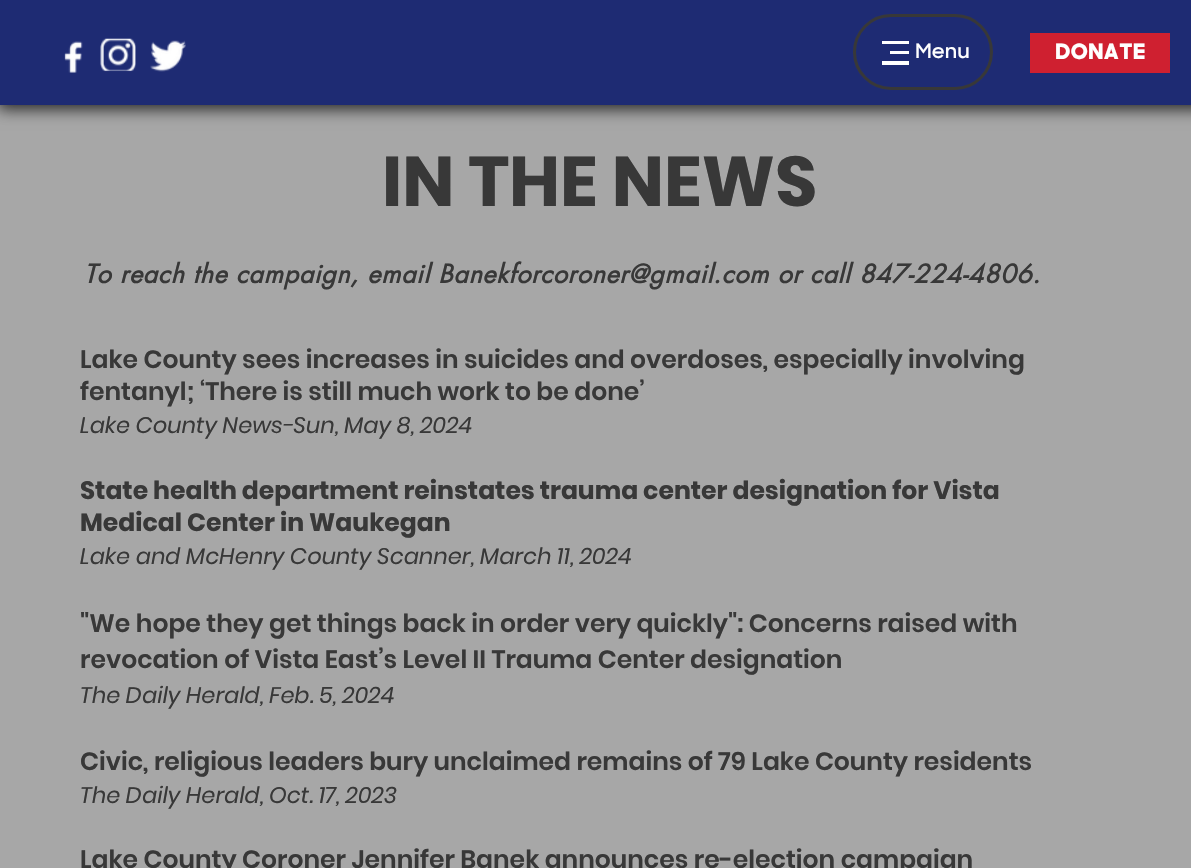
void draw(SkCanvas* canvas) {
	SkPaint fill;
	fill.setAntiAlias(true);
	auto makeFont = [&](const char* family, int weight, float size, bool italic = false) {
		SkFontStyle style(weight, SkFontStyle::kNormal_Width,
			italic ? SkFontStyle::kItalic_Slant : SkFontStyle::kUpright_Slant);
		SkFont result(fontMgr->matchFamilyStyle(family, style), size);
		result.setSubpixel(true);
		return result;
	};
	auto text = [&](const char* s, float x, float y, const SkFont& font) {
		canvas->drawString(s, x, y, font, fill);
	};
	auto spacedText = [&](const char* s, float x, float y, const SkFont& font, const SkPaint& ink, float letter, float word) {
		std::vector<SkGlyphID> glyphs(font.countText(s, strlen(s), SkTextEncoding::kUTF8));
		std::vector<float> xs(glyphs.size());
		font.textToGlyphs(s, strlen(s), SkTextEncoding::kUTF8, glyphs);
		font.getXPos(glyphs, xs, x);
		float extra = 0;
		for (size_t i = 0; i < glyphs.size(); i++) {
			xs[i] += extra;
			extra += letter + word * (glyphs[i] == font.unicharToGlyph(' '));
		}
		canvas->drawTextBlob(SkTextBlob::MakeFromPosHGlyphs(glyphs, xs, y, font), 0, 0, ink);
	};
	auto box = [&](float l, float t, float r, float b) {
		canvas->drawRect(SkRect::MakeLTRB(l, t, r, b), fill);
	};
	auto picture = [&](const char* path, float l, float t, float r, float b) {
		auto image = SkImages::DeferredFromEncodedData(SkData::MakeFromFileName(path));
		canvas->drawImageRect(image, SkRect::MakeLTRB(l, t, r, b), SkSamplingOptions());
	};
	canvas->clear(0xFFA7A7A7);
	fill.setColor(0xC7000000);
	fill.setMaskFilter(SkMaskFilter::MakeBlur(kNormal_SkBlurStyle, 7.5f));
	canvas->drawRect(SkRect::MakeLTRB(-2, -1, 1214, 109), fill);
	fill.setMaskFilter(nullptr);
	fill.setColor(0xFF1E2B73);
	box(0, 0, 1191, 105);
	picture("image0.png", 64, 41, 83, 73);
	picture("image1.png", 100, 38, 136, 72);
	picture("image2.png", 150, 40, 186, 72);
	fill.setStyle(SkPaint::kStroke_Style);
	fill.setStrokeWidth(3);
	fill.setColor(0xFF383838);
	canvas->drawRoundRect(SkRect::MakeLTRB(854.5f, 15.5f, 991.5f, 88.5f), 36.5f, 36.5f, fill);
	fill.setStyle(SkPaint::kFill_Style);
	fill.setColor(0xFFFFFFFF);
	box(882, 41, 909, 44);
	box(890, 51, 909, 54);
	box(882, 61, 909, 65);
	fill.setColor(0xFFCF2030);
	box(1030, 33, 1170, 73);
	auto font1 = makeFont("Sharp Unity", 600, 20);
	fill.setColor(0xFFFFFFFF);
	text("Menu", 915, 58, font1);
	auto font2 = makeFont("Sharp Unity", 800, 21.25f);
	text("DONATE", 1055, 59, font2);
	auto font3 = makeFont("Poppins", 700, 70);
	fill.setColor(0xFF383838);
	text("IN THE NEWS", 382, 206, font3);
	auto font4 = makeFont("futura", 700, 25, true);
	spacedText("To reach the campaign, email Banekforcoroner@gmail.com or call 847-224-4806.", 84, 283, font4, fill, 0.75f, 0);
	auto font5 = makeFont("Poppins", 600, 25);
	text("Lake County sees increases in suicides and overdoses, especially involving", 80, 368, font5);
	text("fentanyl; ‘There is still much work to be done’", 80, 400, font5);
	auto font6 = makeFont("Poppins", 400, 22.5f, true);
	text("Lake County News-Sun, May 8, 2024", 80, 433, font6);
	auto font7 = makeFont("Poppins", 700, 25);
	text("State health department reinstates trauma center designation for Vista", 80, 499, font7);
	text("Medical Center in Waukegan", 80, 531, font7);
	text("Lake and McHenry County Scanner, March 11, 2024", 80, 564, font6);
	text("\"We hope they get things back in order very quickly\": Concerns raised with", 80, 632, font5);
	text("revocation of Vista East’s Level II Trauma Center designation", 80, 668, font5);
	text("The Daily Herald, Feb. 5, 2024", 80, 703, font6);
	text("Civic, religious leaders bury unclaimed remains of 79 Lake County residents", 80, 770, font5);
	text("The Daily Herald, Oct. 17, 2023", 80, 803, font6);
	text("Lake County Coroner Jennifer Banek announces re-election campaign", 80, 868, font5);
}
